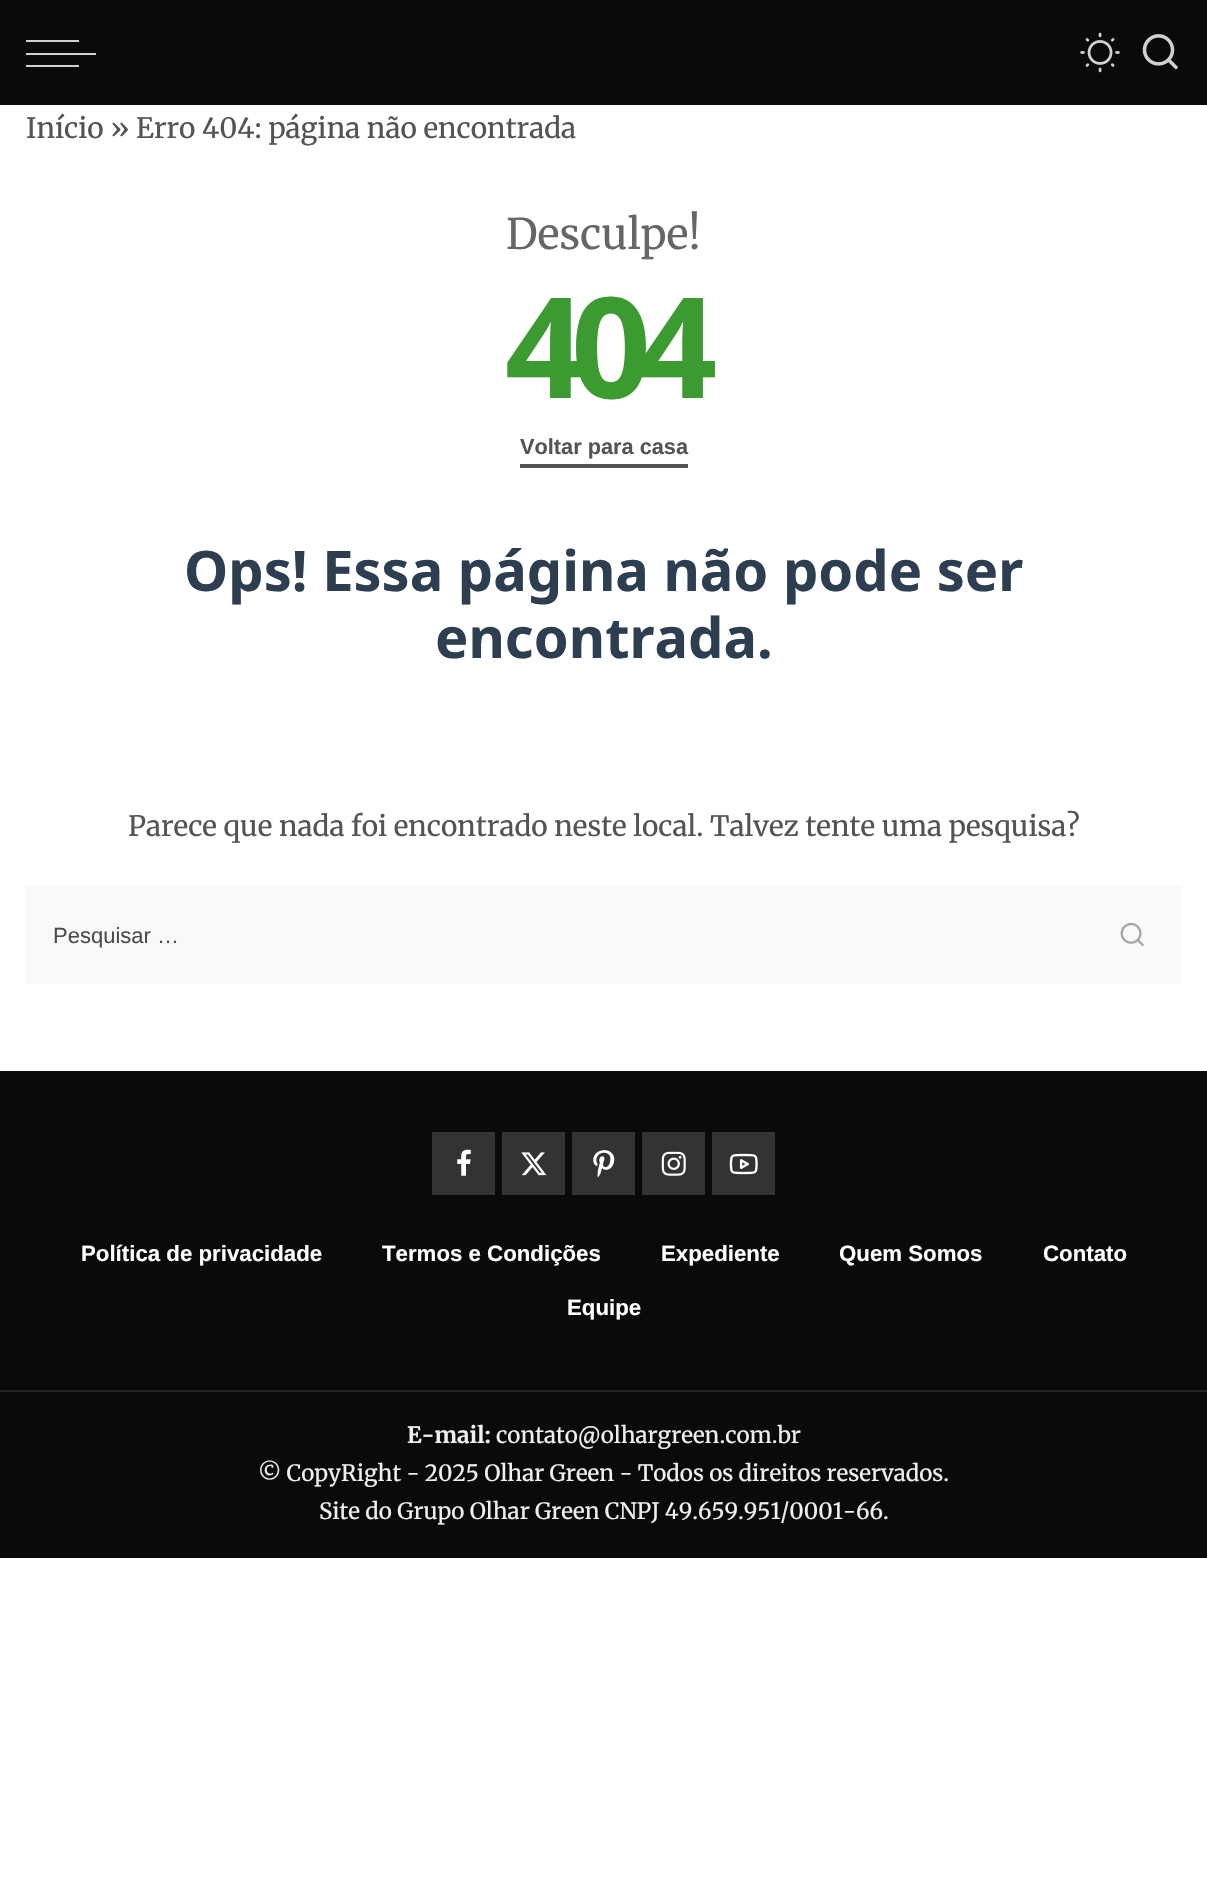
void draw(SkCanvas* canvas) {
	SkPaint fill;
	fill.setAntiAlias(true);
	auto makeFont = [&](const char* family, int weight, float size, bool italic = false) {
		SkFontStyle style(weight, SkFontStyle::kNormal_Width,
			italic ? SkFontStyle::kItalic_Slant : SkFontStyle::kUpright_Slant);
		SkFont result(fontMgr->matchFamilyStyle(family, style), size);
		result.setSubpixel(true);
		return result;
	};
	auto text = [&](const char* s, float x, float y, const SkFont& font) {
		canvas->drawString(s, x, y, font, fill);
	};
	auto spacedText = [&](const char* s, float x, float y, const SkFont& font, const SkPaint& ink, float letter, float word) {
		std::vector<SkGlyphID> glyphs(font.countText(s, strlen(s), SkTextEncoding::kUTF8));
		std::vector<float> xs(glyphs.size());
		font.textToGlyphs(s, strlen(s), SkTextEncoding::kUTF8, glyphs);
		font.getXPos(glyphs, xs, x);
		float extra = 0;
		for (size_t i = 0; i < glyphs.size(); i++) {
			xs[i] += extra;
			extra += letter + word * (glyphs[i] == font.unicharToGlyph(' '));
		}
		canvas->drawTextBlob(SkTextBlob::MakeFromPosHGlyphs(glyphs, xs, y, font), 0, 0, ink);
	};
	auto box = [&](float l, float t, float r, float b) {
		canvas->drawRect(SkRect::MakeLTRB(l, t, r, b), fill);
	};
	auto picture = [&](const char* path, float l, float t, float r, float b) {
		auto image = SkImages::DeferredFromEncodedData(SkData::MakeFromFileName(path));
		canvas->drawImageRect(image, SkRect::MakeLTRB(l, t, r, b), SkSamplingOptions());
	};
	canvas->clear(0xFFFFFFFF);
	fill.setColor(0xFF0A0A0A);
	box(0, 0, 1207, 105);
	fill.setColor(0xFFD1D1D1);
	box(26, 53, 96, 55);
	box(26, 40, 79, 42);
	box(26, 65, 79, 67);
	picture("image0.png", 1080, 32, 1120, 73);
	picture("image1.png", 1142, 34, 1178, 70);
	fill.setColor(0xFF545454);
	box(520, 464, 688, 468);
	fill.setColor(0xFFF9F9F9);
	box(26, 886, 1181, 984);
	picture("image2.png", 1120, 922, 1144, 947);
	fill.setColor(0xFF0A0A0A);
	box(0, 1071, 1207, 1558);
	fill.setColor(0xFF333333);
	box(432, 1132, 495, 1195);
	picture("image3.png", 457, 1149, 471, 1176);
	box(502, 1132, 565, 1195);
	picture("image4.png", 521, 1152, 547, 1176);
	box(572, 1132, 635, 1195);
	picture("image5.png", 593, 1150, 615, 1178);
	box(642, 1132, 705, 1195);
	picture("image6.png", 661, 1151, 686, 1176);
	box(712, 1132, 775, 1195);
	picture("image7.png", 729, 1153, 758, 1175);
	fill.setColor(0xFF232323);
	box(0, 1390, 1207, 1392);
	auto font1 = makeFont("Merriweather", 400, 28);
	fill.setColor(0xFF545454);
	text("Início » Erro 404: página não encontrada", 26, 138, font1);
	auto font2 = makeFont("Merriweather", 400, 42);
	fill.setColor(0xFF666666);
	text("Desculpe!", 506, 249, font2);
	auto font3 = makeFont("Noto Sans", 700, 140);
	fill.setColor(0xFF3C9B30);
	spacedText("404", 505, 398, font3, fill, -14, 0);
	auto font4 = makeFont("Liberation Sans", 700, 21.75f);
	fill.setColor(0xFF545454);
	text("Voltar para casa", 520, 454, font4);
	auto font5 = makeFont("Noto Sans", 700, 56);
	fill.setColor(0xFF2C3E50);
	text("Ops! Essa página não pode ser", 184, 591, font5);
	text("encontrada.", 435, 658, font5);
	fill.setColor(0xFF545454);
	text("Parece que nada foi encontrado neste local. Talvez tente uma pesquisa?", 128, 836, font1);
	auto font6 = makeFont("Liberation Sans", 400, 22);
	fill.setColor(0xFF4B4B4B);
	text("Pesquisar …", 53, 943, font6);
	auto font7 = makeFont("Liberation Sans", 700, 22.25f);
	fill.setColor(0xFFFFFFFF);
	text("Política de privacidade", 81, 1261, font7);
	text("Termos e Condições", 382, 1261, font7);
	text("Expediente", 661, 1261, font7);
	text("Quem Somos", 839, 1261, font7);
	text("Contato", 1043, 1261, font7);
	text("Equipe", 567, 1315, font7);
	auto font8 = makeFont("Merriweather", 700, 22.4f);
	fill.setColor(0xFFEFEFEF);
	text("E-mail:", 407, 1443, font8);
	auto font9 = makeFont("Merriweather", 400, 22.4f);
	text("contato@olhargreen.com.br", 496, 1443, font9);
	text("© CopyRight - 2025 Olhar Green - Todos os direitos reservados.", 258, 1481, font9);
	text("Site do Grupo Olhar Green CNPJ 49.659.951/0001-66.", 319, 1519, font9);
}
